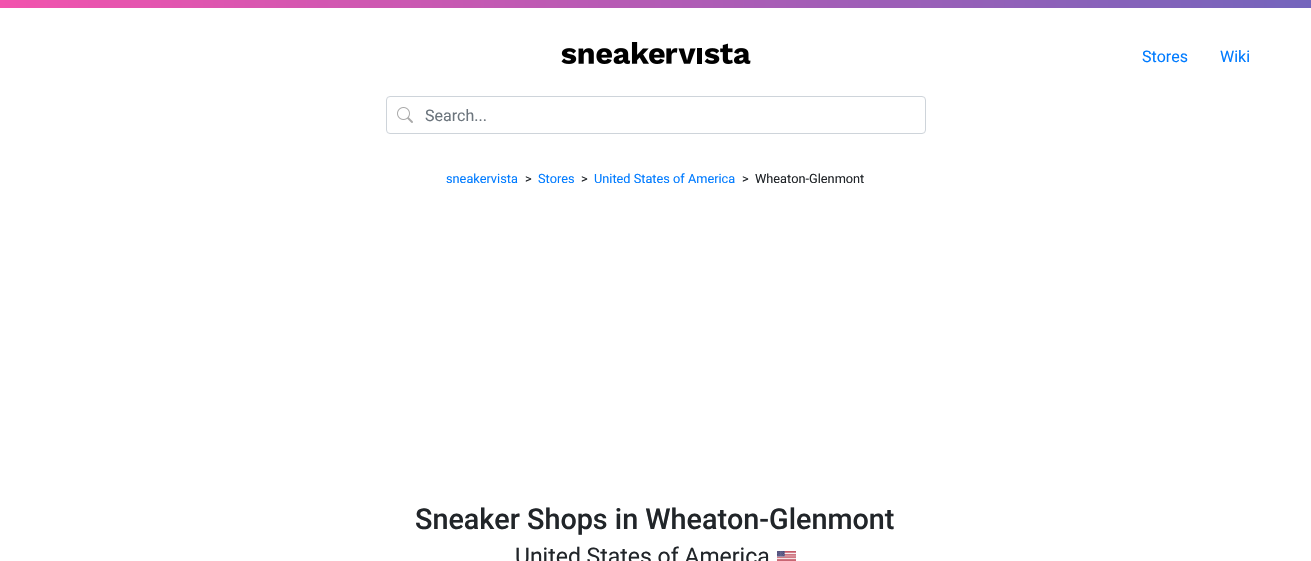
void draw(SkCanvas* canvas) {
	SkPaint fill;
	fill.setAntiAlias(true);
	auto makeFont = [&](const char* family, int weight, float size, bool italic = false) {
		SkFontStyle style(weight, SkFontStyle::kNormal_Width,
			italic ? SkFontStyle::kItalic_Slant : SkFontStyle::kUpright_Slant);
		SkFont result(fontMgr->matchFamilyStyle(family, style), size);
		result.setSubpixel(true);
		return result;
	};
	auto text = [&](const char* s, float x, float y, const SkFont& font) {
		canvas->drawString(s, x, y, font, fill);
	};
	auto box = [&](float l, float t, float r, float b) {
		canvas->drawRect(SkRect::MakeLTRB(l, t, r, b), fill);
	};
	auto picture = [&](const char* path, float l, float t, float r, float b) {
		auto image = SkImages::DeferredFromEncodedData(SkData::MakeFromFileName(path));
		canvas->drawImageRect(image, SkRect::MakeLTRB(l, t, r, b), SkSamplingOptions());
	};
	canvas->clear(0xFFFFFFFF);
	{
		const SkColor colors[] = {0xFFF253AD, 0xFF7465BC};
		const float stops[] = {0, 1};
		const SkPoint ends[] = {{0, 4}, {1311, 4}};
		fill.setShader(SkGradientShader::MakeLinear(ends, colors, stops, 2, SkTileMode::kClamp));
		fill.setAlpha(255);
	}
	box(0, 0, 1311, 8);
	picture("image0.png", 561, 42, 751, 64);
	fill.setStyle(SkPaint::kStroke_Style);
	fill.setStrokeWidth(1);
	fill.setShader(nullptr);
	fill.setColor(0xFFCED4DA);
	canvas->drawRoundRect(SkRect::MakeLTRB(386.5f, 96.5f, 925.5f, 133.5f), 3.5f, 3.5f, fill);
	picture("image1.png", 397, 107, 413, 123);
	picture("image2.png", 777, 551, 796, 561);
	auto font1 = makeFont("Roboto", 400, 16);
	fill.setStyle(SkPaint::kFill_Style);
	fill.setColor(0xFF007BFF);
	text("Stores", 1142, 62, font1);
	text("Wiki", 1220, 62, font1);
	fill.setColor(0xFF6C757D);
	text("Search...", 425, 121, font1);
	auto font2 = makeFont("Roboto", 400, 12.75f);
	fill.setColor(0xFF007BFF);
	text("sneakervista", 446, 183, font2);
	fill.setColor(0xFF212529);
	text(">", 525, 183, font2);
	fill.setColor(0xFF007BFF);
	text("Stores", 538, 183, font2);
	fill.setColor(0xFF212529);
	text(">", 581, 183, font2);
	fill.setColor(0xFF007BFF);
	text("United States of America", 594, 183, font2);
	fill.setColor(0xFF212529);
	text(">", 742, 183, font2);
	text("Wheaton-Glenmont", 755, 183, font2);
	auto font3 = makeFont("Roboto", 500, 28.75f);
	text("Sneaker Shops in Wheaton-Glenmont", 415, 529, font3);
	auto font4 = makeFont("Roboto", 400, 23);
	text("United States of America", 515, 564, font4);
}
